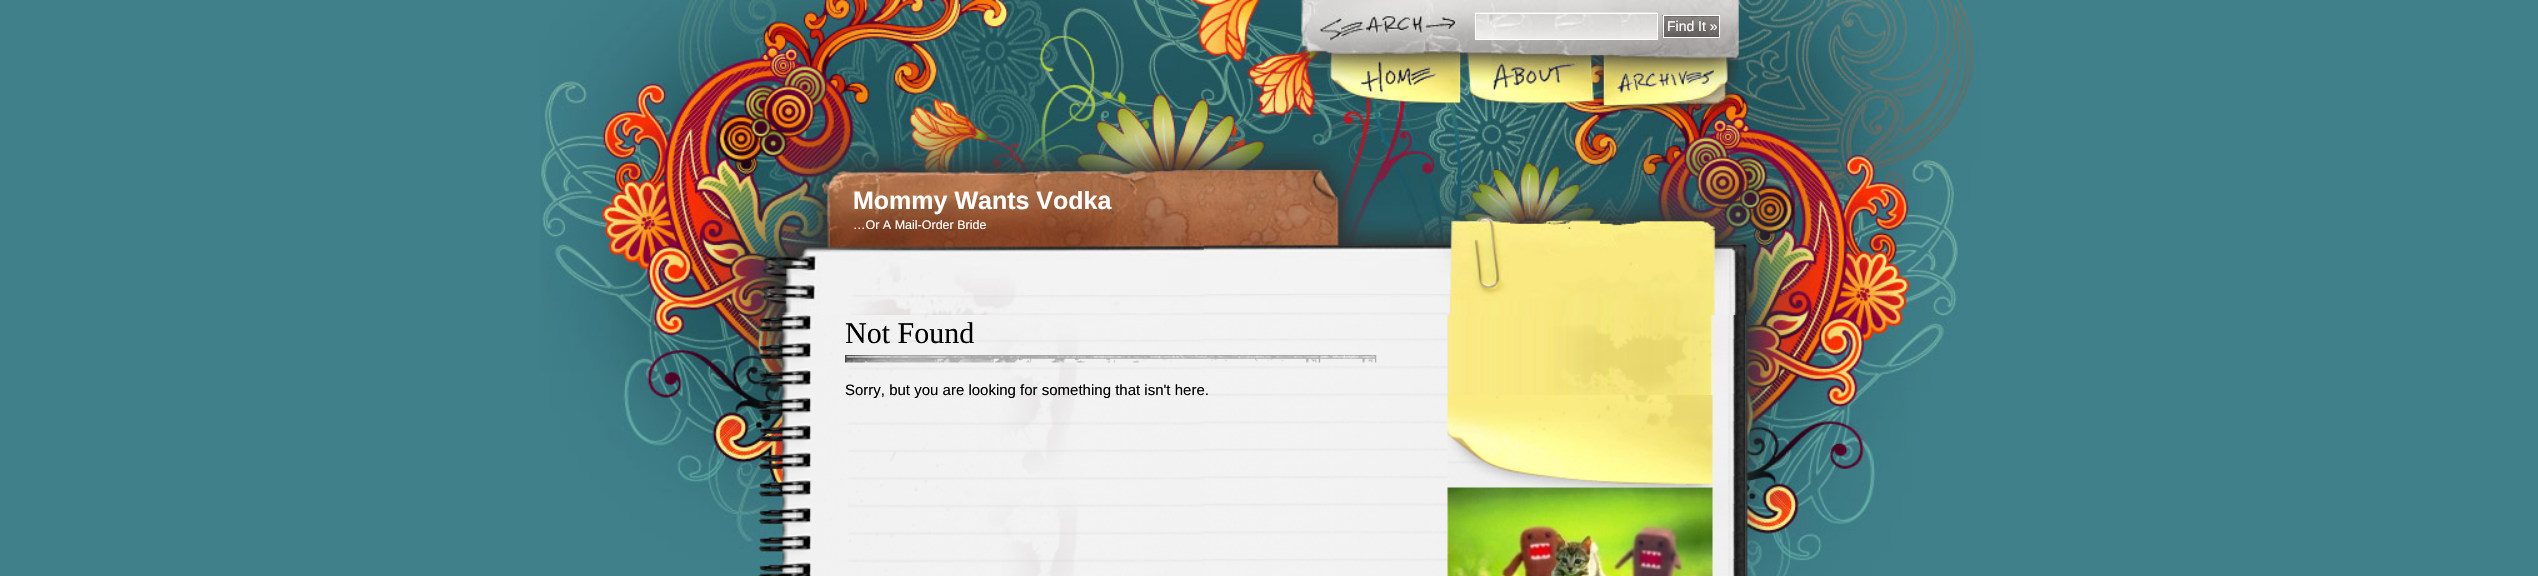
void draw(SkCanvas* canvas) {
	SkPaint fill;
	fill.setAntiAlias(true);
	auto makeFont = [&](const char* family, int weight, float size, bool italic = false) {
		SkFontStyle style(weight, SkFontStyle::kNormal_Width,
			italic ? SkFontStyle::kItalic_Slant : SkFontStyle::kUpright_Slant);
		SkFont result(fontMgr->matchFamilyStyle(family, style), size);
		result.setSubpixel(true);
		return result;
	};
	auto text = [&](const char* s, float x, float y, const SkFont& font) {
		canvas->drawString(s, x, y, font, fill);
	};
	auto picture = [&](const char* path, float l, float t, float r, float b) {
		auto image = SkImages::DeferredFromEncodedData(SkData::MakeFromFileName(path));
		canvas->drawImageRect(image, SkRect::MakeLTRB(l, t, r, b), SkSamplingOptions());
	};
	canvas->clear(0xFF3F808A);
	picture("image0.png", 540, 0, 1980, 576);
	picture("image1.png", 1475, 12, 1658, 39);
	fill.setStyle(SkPaint::kStroke_Style);
	fill.setStrokeWidth(1);
	fill.setColor(0xFFFFFFFF);
	canvas->drawRect(SkRect::MakeLTRB(1475.5f, 13.5f, 1657.5f, 39.5f), fill);
	picture("image2.png", 1662, 15, 1719, 38);
	canvas->drawRect(SkRect::MakeLTRB(1663.5f, 15.5f, 1719.5f, 37.5f), fill);
	picture("image3.png", 758, 315, 1747, 576);
	picture("image4.png", 845, 355, 1377, 363);
	picture("image5.png", 1447, 315, 1713, 395);
	picture("image6.png", 1447, 395, 1713, 488);
	picture("image7.png", 1447, 487, 1713, 576);
	auto font1 = makeFont("Liberation Sans", 400, 14);
	fill.setStyle(SkPaint::kFill_Style);
	text("Find It »", 1667, 31, font1);
	auto font2 = makeFont("Liberation Sans", 700, 25);
	text("Mommy Wants Vodka", 853, 209, font2);
	auto font3 = makeFont("Liberation Sans", 400, 12.5f);
	text("…Or A Mail-Order Bride", 853, 229, font3);
	auto font4 = makeFont("Liberation Serif", 400, 30);
	fill.setColor(0xFF000000);
	text("Not Found", 845, 343, font4);
	auto font5 = makeFont("Liberation Sans", 400, 15);
	text("Sorry, but you are looking for something that isn't here.", 845, 395, font5);
}
